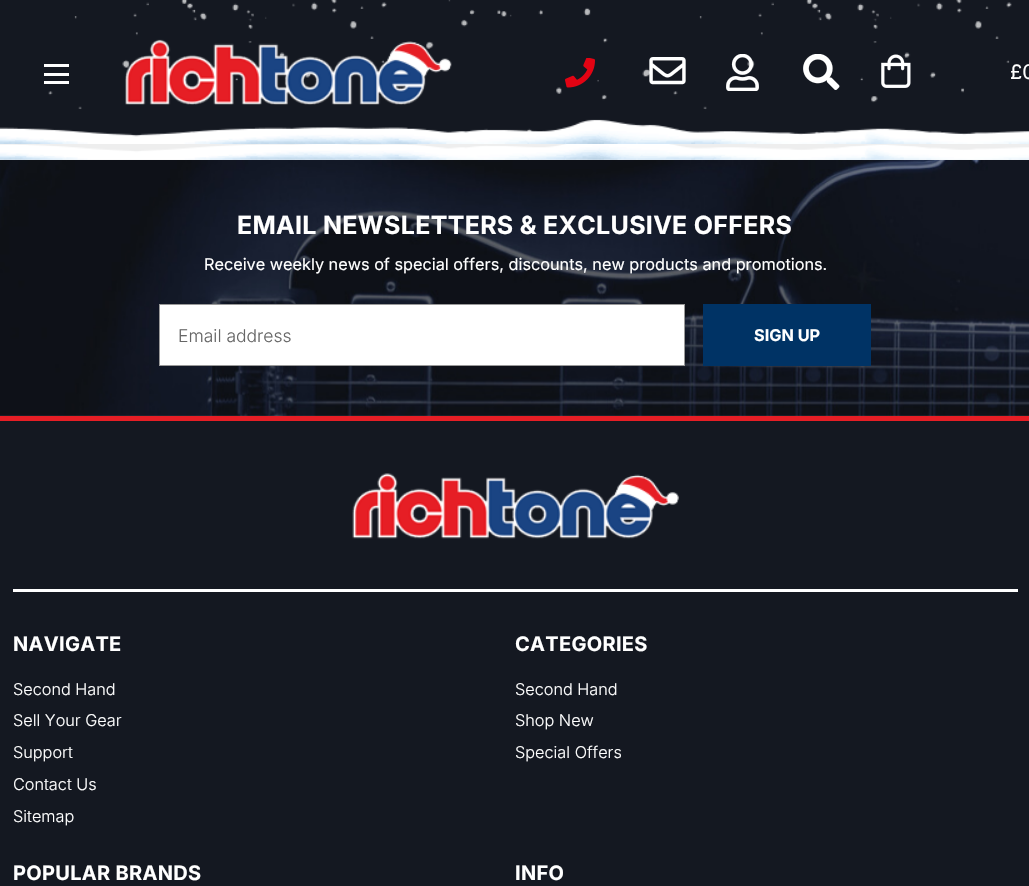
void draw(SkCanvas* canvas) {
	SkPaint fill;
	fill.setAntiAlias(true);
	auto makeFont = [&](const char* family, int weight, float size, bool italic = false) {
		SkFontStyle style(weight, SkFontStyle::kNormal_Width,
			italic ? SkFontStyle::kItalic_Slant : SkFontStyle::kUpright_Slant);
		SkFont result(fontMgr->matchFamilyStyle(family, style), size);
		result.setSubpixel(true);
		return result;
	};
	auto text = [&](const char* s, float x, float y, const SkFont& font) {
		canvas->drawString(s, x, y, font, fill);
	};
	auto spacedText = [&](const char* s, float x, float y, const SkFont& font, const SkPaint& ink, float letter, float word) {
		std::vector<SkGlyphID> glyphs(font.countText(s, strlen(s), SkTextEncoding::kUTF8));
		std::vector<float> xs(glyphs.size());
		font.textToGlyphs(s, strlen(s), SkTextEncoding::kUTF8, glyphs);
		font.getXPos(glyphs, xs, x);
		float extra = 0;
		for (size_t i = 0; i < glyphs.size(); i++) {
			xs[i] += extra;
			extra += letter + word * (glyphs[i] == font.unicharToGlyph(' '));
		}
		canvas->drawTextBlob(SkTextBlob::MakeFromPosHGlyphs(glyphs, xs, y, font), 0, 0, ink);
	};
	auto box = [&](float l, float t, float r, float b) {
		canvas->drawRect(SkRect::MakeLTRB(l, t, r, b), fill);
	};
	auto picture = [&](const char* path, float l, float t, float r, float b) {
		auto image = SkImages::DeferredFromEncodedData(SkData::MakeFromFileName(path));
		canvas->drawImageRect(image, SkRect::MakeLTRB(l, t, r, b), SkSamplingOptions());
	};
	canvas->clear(0xFFEEEEEE);
	fill.setColor(0xFF141821);
	box(0, 0, 1029, 137);
	picture("image0.png", 48, 0, 1012, 136);
	picture("image1.png", 0, 119, 1029, 144);
	fill.setColor(0xFFFFFFFF);
	box(44, 73, 69, 76);
	box(44, 64, 69, 67);
	box(44, 81, 69, 84);
	picture("image2.png", 125, 39, 452, 105);
	picture("image3.png", 565, 58, 595, 88);
	picture("image4.png", 649, 57, 686, 85);
	picture("image5.png", 726, 54, 759, 91);
	picture("image6.png", 803, 54, 840, 90);
	picture("image7.png", 881, 54, 911, 88);
	picture("image8.png", 0, 160, 1029, 416);
	picture("image9.png", 0, 144, 1029, 160);
	canvas->drawRect(SkRect::MakeLTRB(159.5f, 304.5f, 684.5f, 365.5f), fill);
	fill.setStyle(SkPaint::kStroke_Style);
	fill.setStrokeWidth(1);
	fill.setColor(0xFF999999);
	canvas->drawRect(SkRect::MakeLTRB(159.5f, 304.5f, 684.5f, 365.5f), fill);
	fill.setStyle(SkPaint::kFill_Style);
	fill.setColor(0xFF003365);
	box(703, 304, 871, 366);
	fill.setColor(0xFF141821);
	box(0, 421, 1029, 886);
	fill.setColor(0xFFE61E25);
	box(0, 416, 1029, 421);
	fill.setColor(0xFFFFFFFF);
	box(13, 589, 1018, 592);
	picture("image10.png", 352, 473, 679, 539);
	auto font1 = makeFont("Inter", 400, 20);
	text("£0", 1010, 79, font1);
	auto font2 = makeFont("Inter", 700, 25);
	spacedText("EMAIL NEWSLETTERS & EXCLUSIVE OFFERS", 237, 234, font2, fill, 0.3f, 0);
	auto font3 = makeFont("Inter", 400, 16.25f);
	text("Receive weekly news of special offers, discounts, new products and promotions.", 204, 270, font3);
	auto font4 = makeFont("Inter", 300, 17.5f);
	fill.setColor(0xFF666666);
	text("Email address", 178, 342, font4);
	auto font5 = makeFont("Inter", 700, 16.25f);
	fill.setColor(0xFFFFFFFF);
	text("SIGN UP", 754, 341, font5);
	auto font6 = makeFont("Inter", 700, 20);
	spacedText("NAVIGATE", 13, 651, font6, fill, 0.3f, 0);
	auto font7 = makeFont("Inter", 300, 16.25f);
	text("Second Hand", 13, 695, font7);
	text("Sell Your Gear", 13, 726, font7);
	text("Support", 13, 758, font7);
	text("Contact Us", 13, 790, font7);
	text("Sitemap", 13, 822, font7);
	spacedText("CATEGORIES", 515, 651, font6, fill, 0.3f, 0);
	text("Second Hand", 515, 695, font7);
	text("Shop New", 515, 726, font7);
	text("Special Offers", 515, 758, font7);
	spacedText("POPULAR BRANDS", 13, 880, font6, fill, 0.3f, 0);
	spacedText("INFO", 515, 880, font6, fill, 0.3f, 0);
}
